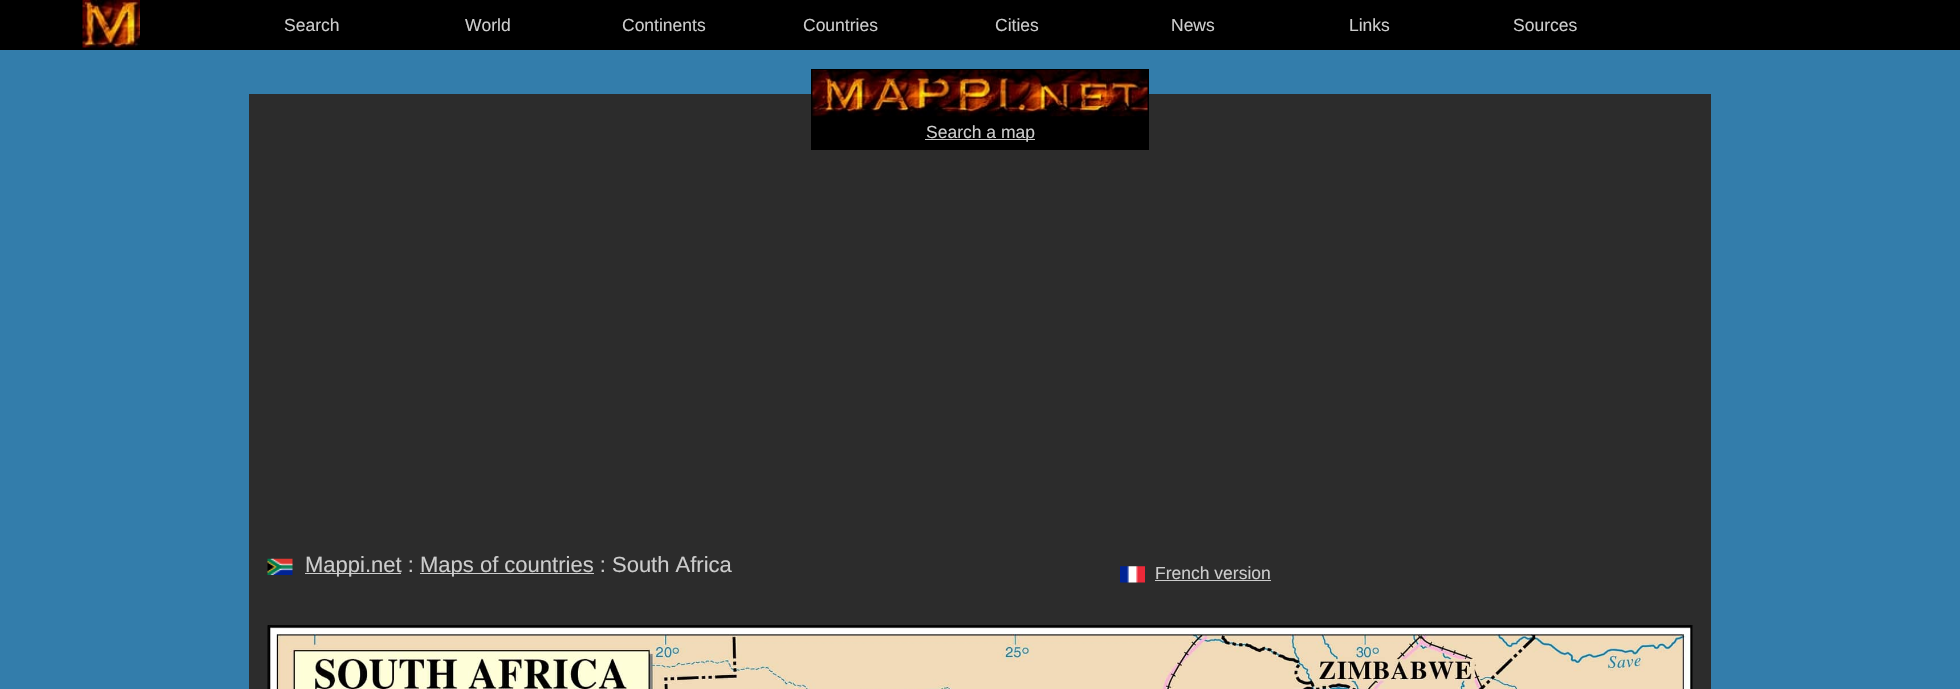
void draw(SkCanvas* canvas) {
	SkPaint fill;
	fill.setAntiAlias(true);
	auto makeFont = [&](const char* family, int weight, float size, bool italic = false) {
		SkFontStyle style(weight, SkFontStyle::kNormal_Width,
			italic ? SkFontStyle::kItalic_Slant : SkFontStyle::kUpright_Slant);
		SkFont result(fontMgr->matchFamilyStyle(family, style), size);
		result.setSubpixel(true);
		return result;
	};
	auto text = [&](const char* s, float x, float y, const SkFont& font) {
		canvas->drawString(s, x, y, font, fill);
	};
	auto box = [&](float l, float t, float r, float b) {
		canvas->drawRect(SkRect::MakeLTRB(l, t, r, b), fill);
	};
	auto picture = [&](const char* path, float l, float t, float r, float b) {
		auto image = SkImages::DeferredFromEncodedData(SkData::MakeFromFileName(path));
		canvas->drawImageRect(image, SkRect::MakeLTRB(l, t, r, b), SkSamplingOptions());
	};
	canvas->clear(0xFF337DAB);
	fill.setColor(0xFF000000);
	box(0, 0, 1960, 50);
	picture("image0.png", 82, 0, 140, 48);
	fill.setColor(0xFF2C2C2C);
	box(249, 94, 1711, 689);
	fill.setColor(0xFF000000);
	box(811, 69, 1149, 150);
	picture("image1.png", 812, 70, 1148, 117);
	fill.setColor(0xFFCCCCCC);
	box(925, 139, 1035, 140);
	picture("image2.png", 267, 558, 293, 575);
	box(305, 573, 401, 574);
	box(420, 573, 594, 574);
	picture("image3.png", 1120, 566, 1145, 583);
	box(1155, 580, 1271, 581);
	picture("image4.png", 267, 625, 1693, 689);
	auto font1 = makeFont("Liberation Sans", 400, 17.5f);
	text("Search", 284, 31, font1);
	text("World", 465, 31, font1);
	text("Continents", 622, 31, font1);
	text("Countries", 803, 31, font1);
	text("Cities", 995, 31, font1);
	text("News", 1171, 31, font1);
	text("Links", 1349, 31, font1);
	text("Sources", 1513, 31, font1);
	text("Search a map", 926, 138, font1);
	auto font2 = makeFont("Liberation Sans", 400, 22);
	text("Mappi.net :", 305, 572, font2);
	text("Maps of countries : South Africa", 420, 572, font2);
	text("French version", 1155, 579, font1);
}
